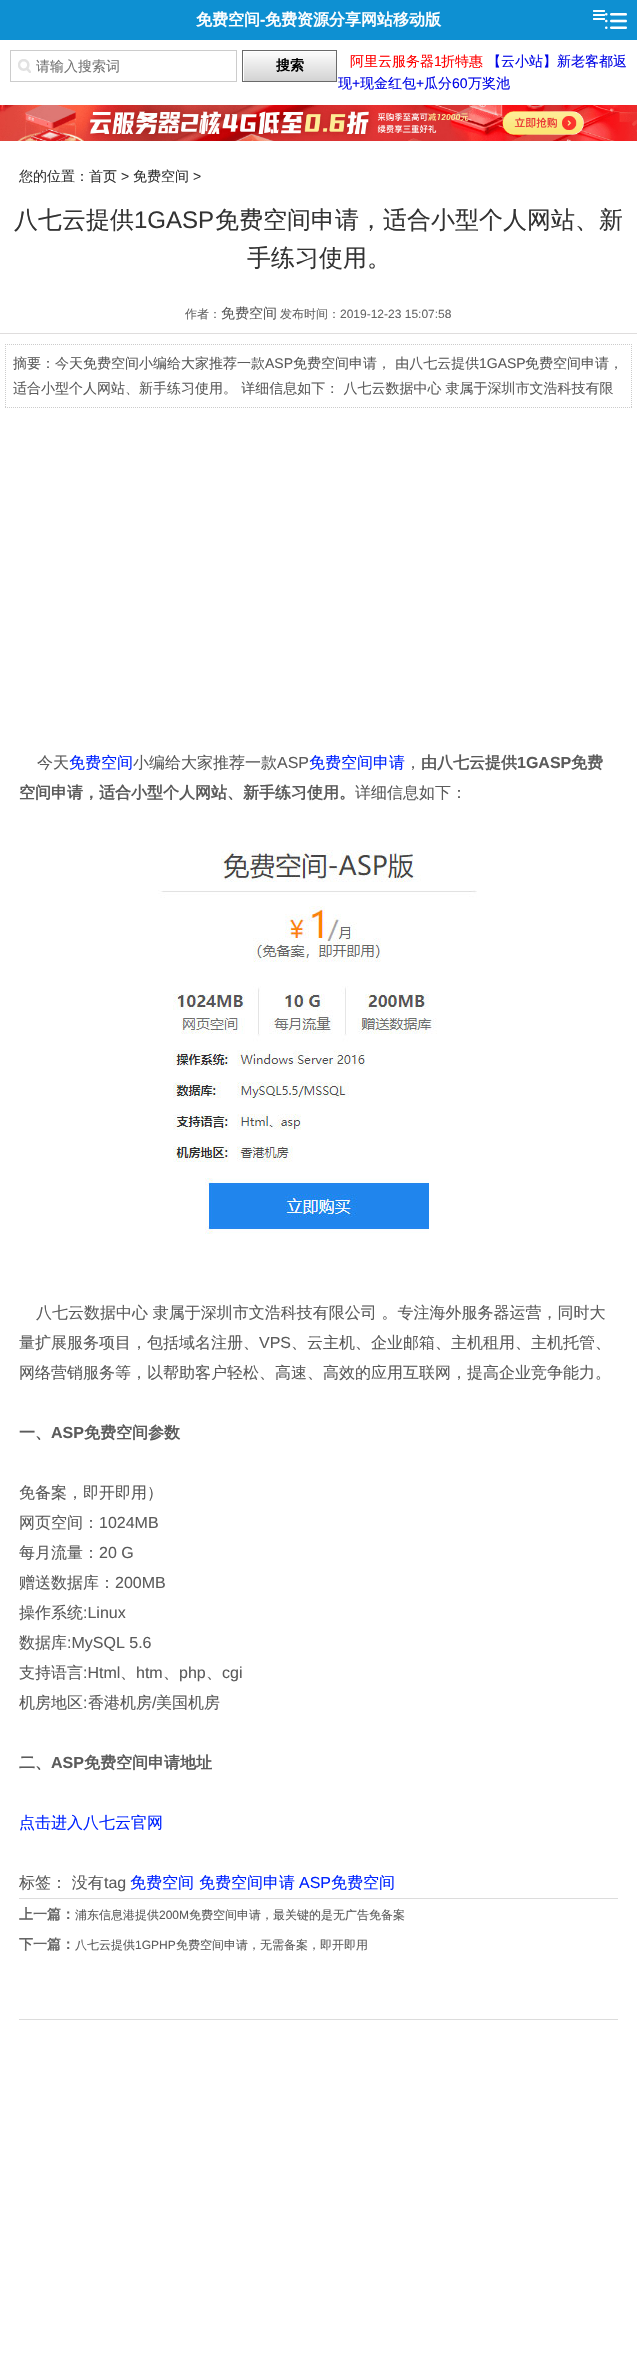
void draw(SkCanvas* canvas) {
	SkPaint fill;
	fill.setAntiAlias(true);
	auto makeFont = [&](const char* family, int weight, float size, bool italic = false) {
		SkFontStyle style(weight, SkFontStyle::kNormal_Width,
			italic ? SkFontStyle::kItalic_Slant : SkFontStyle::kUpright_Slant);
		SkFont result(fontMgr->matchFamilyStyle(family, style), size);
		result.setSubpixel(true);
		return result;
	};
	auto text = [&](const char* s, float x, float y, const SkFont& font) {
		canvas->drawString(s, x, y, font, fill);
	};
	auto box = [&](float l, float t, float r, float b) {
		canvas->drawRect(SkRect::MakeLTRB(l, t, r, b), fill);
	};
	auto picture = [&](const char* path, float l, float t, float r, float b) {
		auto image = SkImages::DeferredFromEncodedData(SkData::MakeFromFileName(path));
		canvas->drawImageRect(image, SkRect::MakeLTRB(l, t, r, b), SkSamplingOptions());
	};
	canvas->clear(0xFFFFFFFF);
	fill.setColor(0xFF0E90D2);
	box(0, 0, 637, 40);
	picture("image0.png", 593, 10, 605, 20);
	picture("image1.png", 605, 13, 627, 29);
	picture("image2.png", 18, 59, 31, 73);
	fill.setStyle(SkPaint::kStroke_Style);
	fill.setStrokeWidth(1);
	fill.setColor(0xFFCCCCCC);
	canvas->drawRect(SkRect::MakeLTRB(10.5f, 50.5f, 236.5f, 81.5f), fill);
	picture("image3.png", 242, 50, 337, 82);
	picture("image4.png", 0, 105, 637, 141);
	fill.setStyle(SkPaint::kFill_Style);
	fill.setColor(0xFFDFDDDD);
	box(0, 333, 637, 334);
	fill.setStyle(SkPaint::kStroke_Style);
	fill.setColor(0xFFCCCCCC);
	fill.setPathEffect(SkDashPathEffect::Make({{1, 1}}, 0));
	canvas->drawPath(SkPathBuilder().moveTo(5, 344.5f).lineTo(632, 344.5f).detach(), fill);
	fill.setPathEffect(nullptr);
	fill.setPathEffect(SkDashPathEffect::Make({{1, 1}}, 0));
	canvas->drawPath(SkPathBuilder().moveTo(631.5f, 344).lineTo(631.5f, 408).detach(), fill);
	fill.setPathEffect(nullptr);
	fill.setPathEffect(SkDashPathEffect::Make({{1, 1}}, 0));
	canvas->drawPath(SkPathBuilder().moveTo(5, 407.5f).lineTo(632, 407.5f).detach(), fill);
	fill.setPathEffect(nullptr);
	fill.setPathEffect(SkDashPathEffect::Make({{1, 1}}, 0));
	canvas->drawPath(SkPathBuilder().moveTo(5.5f, 344).lineTo(5.5f, 408).detach(), fill);
	fill.setPathEffect(nullptr);
	picture("image5.png", 158, 850, 477, 1234);
	fill.setStyle(SkPaint::kFill_Style);
	fill.setColor(0xFFDCDCDC);
	box(19, 1898, 618, 1899);
	box(19, 2019, 618, 2020);
	auto font1 = makeFont("WenQuanYi Zen Hei", 700, 16);
	fill.setColor(0xFFFFFFFF);
	text("免费空间", 196, 25, font1);
	auto font2 = makeFont("Liberation Sans", 700, 16);
	text("-", 260, 25, font2);
	text("免费资源分享网站移动版", 265, 25, font1);
	auto font3 = makeFont("WenQuanYi Zen Hei", 500, 14);
	fill.setColor(0xFF757575);
	text("请输入搜索词", 36, 71, font3);
	auto font4 = makeFont("WenQuanYi Zen Hei", 700, 14);
	fill.setColor(0xFF000000);
	text("搜索", 276, 70, font4);
	fill.setColor(0xFFFF0000);
	text("阿里云服务器", 350, 66, font3);
	auto font5 = makeFont("Liberation Sans", 400, 14);
	text("1", 434, 66, font5);
	text("折特惠", 441, 66, font3);
	fill.setColor(0xFF0005E6);
	text("【云小站】新老客都返", 487, 66, font3);
	text("现", 338, 88, font3);
	text("+", 352, 88, font5);
	text("现金红包", 360, 88, font3);
	text("+", 416, 88, font5);
	text("瓜分", 424, 88, font3);
	text("60", 452, 88, font5);
	text("万奖池", 468, 88, font3);
	fill.setColor(0xFF333333);
	text("您的位置：首页", 19, 181, font3);
	text(">", 121, 181, font5);
	text("免费空间", 133, 181, font3);
	text(">", 193, 181, font5);
	auto font6 = makeFont("WenQuanYi Zen Hei", 500, 24);
	text("八七云提供", 14, 228, font6);
	auto font7 = makeFont("Liberation Sans", 400, 24);
	text("1GASP", 134, 228, font7);
	text("免费空间申请，适合小型个人网站、新", 215, 228, font6);
	text("手练习使用。", 247, 266, font6);
	auto font8 = makeFont("WenQuanYi Zen Hei", 500, 12);
	fill.setColor(0xFF666666);
	text("作者：", 185, 318, font8);
	fill.setColor(0xFF5B5B5B);
	text("免费空间", 221, 318, font3);
	fill.setColor(0xFF666666);
	text("发布时间：", 280, 318, font8);
	auto font9 = makeFont("Liberation Sans", 400, 12);
	text("2019-12-23 15:07:58", 340, 318, font9);
	fill.setColor(0xFF5B5B5B);
	text("摘要：今天免费空间小编给大家推荐一款", 13, 368, font3);
	text("ASP", 265, 368, font5);
	text("免费空间申请， 由八七云提供", 293, 368, font3);
	text("1GASP", 479, 368, font5);
	text("免费空间申请，", 525, 368, font3);
	text("适合小型个人网站、新手练习使用。 详细信息如下： 八七云数据中心 隶属于深圳市文浩科技有限", 13, 393, font3);
	auto font10 = makeFont("WenQuanYi Zen Hei", 500, 16);
	text("今天", 37, 768, font10);
	fill.setColor(0xFF0024FF);
	text("免费空间", 69, 768, font10);
	fill.setColor(0xFF5B5B5B);
	text("小编给大家推荐一款", 133, 768, font10);
	auto font11 = makeFont("Liberation Sans", 400, 16);
	text("ASP", 277, 768, font11);
	fill.setColor(0xFF0024FF);
	text("免费空间申请", 309, 768, font10);
	fill.setColor(0xFF5B5B5B);
	text("，", 405, 768, font10);
	text("由八七云提供", 421, 768, font1);
	text("1GASP", 517, 768, font2);
	text("免费", 571, 768, font1);
	text("空间申请，适合小型个人网站、新手练习使用。", 19, 798, font1);
	text("详细信息如下：", 355, 798, font10);
	text("八七云数据中心 隶属于深圳市文浩科技有限公司 。专注海外服务器运营，同时大", 36, 1318, font10);
	text("量扩展服务项目，包括域名注册、", 19, 1348, font10);
	text("VPS", 259, 1348, font11);
	text("、云主机、企业邮箱、主机租用、主机托管、", 291, 1348, font10);
	text("网络营销服务等，以帮助客户轻松、高速、高效的应用互联网，提高企业竞争能力。", 19, 1378, font10);
	text("一、", 19, 1438, font1);
	text("ASP", 51, 1438, font2);
	text("免费空间参数", 84, 1438, font1);
	text("免备案，即开即用）", 19, 1498, font10);
	text("网页空间：", 19, 1528, font10);
	text("1024MB", 99, 1528, font11);
	text("每月流量：", 19, 1558, font10);
	text("20 G", 99, 1558, font11);
	text("赠送数据库：", 19, 1588, font10);
	text("200MB", 115, 1588, font11);
	text("操作系统", 19, 1618, font10);
	text(":Linux", 83, 1618, font11);
	text("数据库", 19, 1648, font10);
	text(":MySQL 5.6", 67, 1648, font11);
	text("支持语言", 19, 1678, font10);
	text(":Html", 83, 1678, font11);
	text("、", 120, 1678, font10);
	text("htm", 136, 1678, font11);
	text("、", 163, 1678, font10);
	text("php", 179, 1678, font11);
	text("、", 206, 1678, font10);
	text("cgi", 222, 1678, font11);
	text("机房地区", 19, 1708, font10);
	text(":", 83, 1708, font11);
	text("香港机房", 88, 1708, font10);
	text("/", 152, 1708, font11);
	text("美国机房", 156, 1708, font10);
	text("二、", 19, 1768, font1);
	text("ASP", 51, 1768, font2);
	text("免费空间申请地址", 84, 1768, font1);
	fill.setColor(0xFF0024FF);
	text("点击进入八七云官网", 19, 1828, font10);
	fill.setColor(0xFF5B5B5B);
	text("标签： 没有", 19, 1888, font10);
	text("tag", 104, 1888, font11);
	fill.setColor(0xFF0024FF);
	text("免费空间", 130, 1888, font10);
	text("免费空间申请", 199, 1888, font10);
	text("ASP", 299, 1888, font11);
	text("免费空间", 331, 1888, font10);
	fill.setColor(0xFF666666);
	text("上一篇：", 19, 1919, font4);
	fill.setColor(0xFF5B5B5B);
	text("浦东信息港提供", 75, 1919, font8);
	text("200M", 159, 1919, font9);
	text("免费空间申请，最关键的是无广告免备案", 189, 1919, font8);
	fill.setColor(0xFF666666);
	text("下一篇：", 19, 1949, font4);
	fill.setColor(0xFF5B5B5B);
	text("八七云提供", 75, 1949, font8);
	text("1GPHP", 135, 1949, font9);
	text("免费空间申请，无需备案，即开即用", 176, 1949, font8);
}
